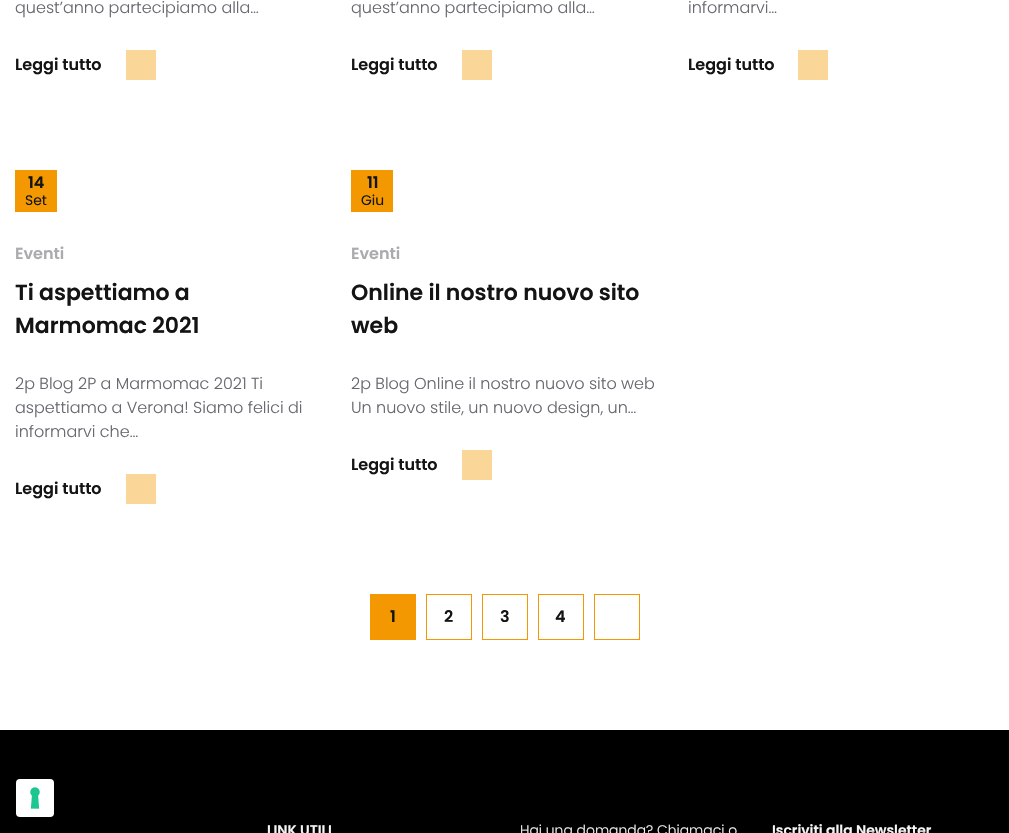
void draw(SkCanvas* canvas) {
	SkPaint fill;
	fill.setAntiAlias(true);
	auto makeFont = [&](const char* family, int weight, float size, bool italic = false) {
		SkFontStyle style(weight, SkFontStyle::kNormal_Width,
			italic ? SkFontStyle::kItalic_Slant : SkFontStyle::kUpright_Slant);
		SkFont result(fontMgr->matchFamilyStyle(family, style), size);
		result.setSubpixel(true);
		return result;
	};
	auto text = [&](const char* s, float x, float y, const SkFont& font) {
		canvas->drawString(s, x, y, font, fill);
	};
	auto box = [&](float l, float t, float r, float b) {
		canvas->drawRect(SkRect::MakeLTRB(l, t, r, b), fill);
	};
	auto roundBox = [&](float l, float t, float r, float b, float radius) {
		canvas->drawRoundRect(SkRect::MakeLTRB(l, t, r, b), radius, radius, fill);
	};
	auto picture = [&](const char* path, float l, float t, float r, float b) {
		auto image = SkImages::DeferredFromEncodedData(SkData::MakeFromFileName(path));
		canvas->drawImageRect(image, SkRect::MakeLTRB(l, t, r, b), SkSamplingOptions());
	};
	canvas->clear(0xFFFFFFFF);
	fill.setColor(0xFFFAD699);
	box(126, 50, 156, 80);
	box(462, 50, 492, 80);
	box(798, 50, 828, 80);
	fill.setColor(0xFFF39800);
	box(15, 170, 57, 212);
	fill.setColor(0xFFFAD699);
	box(126, 474, 156, 504);
	fill.setColor(0xFFF39800);
	box(351, 170, 393, 212);
	fill.setColor(0xFFFAD699);
	box(462, 450, 492, 480);
	fill.setColor(0xFFF39800);
	box(370, 594, 416, 640);
	fill.setStyle(SkPaint::kStroke_Style);
	fill.setStrokeWidth(1);
	canvas->drawRect(SkRect::MakeLTRB(426.5f, 594.5f, 471.5f, 639.5f), fill);
	canvas->drawRect(SkRect::MakeLTRB(482.5f, 594.5f, 527.5f, 639.5f), fill);
	canvas->drawRect(SkRect::MakeLTRB(538.5f, 594.5f, 583.5f, 639.5f), fill);
	canvas->drawRect(SkRect::MakeLTRB(594.5f, 594.5f, 639.5f, 639.5f), fill);
	fill.setStyle(SkPaint::kFill_Style);
	fill.setColor(0xFF000000);
	box(0, 730, 1009, 833);
	fill.setColor(0xFFFFFFFF);
	roundBox(16, 779, 54, 817, 4);
	picture("image0.png", 30, 787, 40, 809);
	auto font1 = makeFont("Poppins", 300, 16);
	fill.setColor(0xFF66686F);
	text("quest’anno partecipiamo alla…", 15, 13, font1);
	auto font2 = makeFont("Poppins", 600, 16);
	fill.setColor(0xFF131515);
	text("Leggi tutto", 15, 70, font2);
	fill.setColor(0xFF66686F);
	text("quest’anno partecipiamo alla…", 351, 13, font1);
	fill.setColor(0xFF131515);
	text("Leggi tutto", 351, 70, font2);
	fill.setColor(0xFF66686F);
	text("informarvi…", 688, 13, font1);
	fill.setColor(0xFF131515);
	text("Leggi tutto", 688, 70, font2);
	text("14", 28, 188, font2);
	auto font3 = makeFont("Poppins", 400, 13.9f);
	text("Set", 25, 205, font3);
	fill.setColor(0xFFAAABAF);
	text("Eventi", 15, 259, font2);
	auto font4 = makeFont("Poppins", 600, 22);
	fill.setColor(0xFF131515);
	text("Ti aspettiamo a", 15, 300, font4);
	text("Marmomac 2021", 15, 333, font4);
	fill.setColor(0xFF66686F);
	text("2p Blog 2P a Marmomac 2021 Ti", 15, 389, font1);
	text("aspettiamo a Verona! Siamo felici di", 15, 413, font1);
	text("informarvi che…", 15, 437, font1);
	fill.setColor(0xFF131515);
	text("Leggi tutto", 15, 494, font2);
	text("11", 367, 188, font2);
	text("Giu", 361, 205, font3);
	fill.setColor(0xFFAAABAF);
	text("Eventi", 351, 259, font2);
	fill.setColor(0xFF131515);
	text("Online il nostro nuovo sito", 351, 300, font4);
	text("web", 351, 333, font4);
	fill.setColor(0xFF66686F);
	text("2p Blog Online il nostro nuovo sito web", 351, 389, font1);
	text("Un nuovo stile, un nuovo design, un…", 351, 413, font1);
	fill.setColor(0xFF131515);
	text("Leggi tutto", 351, 470, font2);
	text("1", 390, 622, font2);
	text("2", 444, 622, font2);
	text("3", 500, 622, font2);
	text("4", 555, 622, font2);
	auto font5 = makeFont("Poppins", 600, 13.9f);
	fill.setColor(0xFFF4F4F4);
	text("LINK UTILI", 267, 835, font5);
	auto font6 = makeFont("Poppins", 300, 13.9f);
	text("Hai una domanda? Chiamaci o", 520, 835, font6);
	text("Iscriviti alla Newsletter", 772, 835, font5);
}
